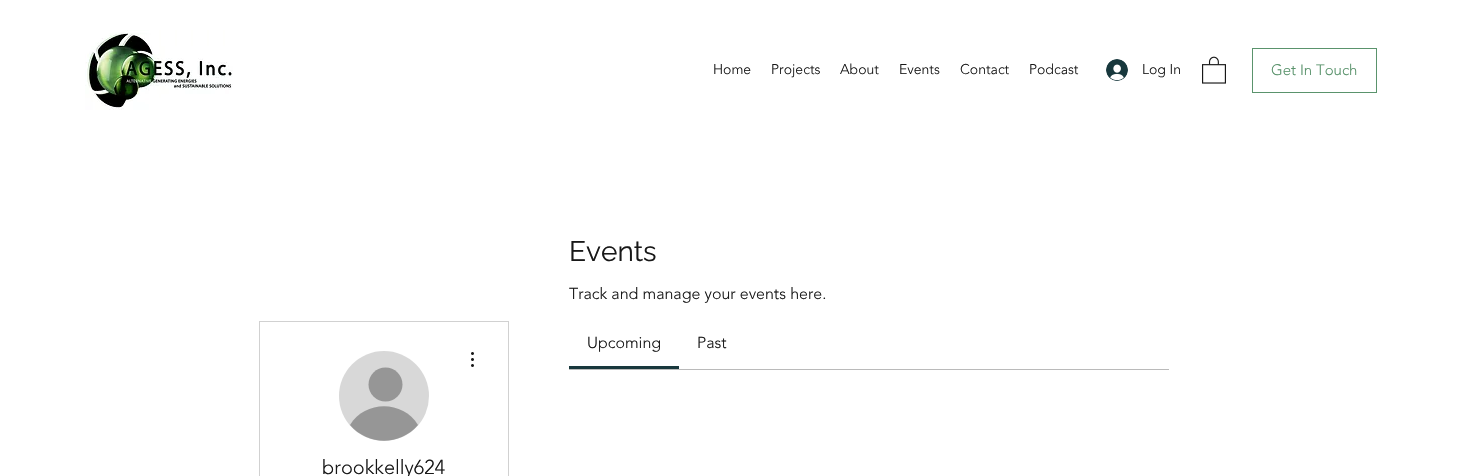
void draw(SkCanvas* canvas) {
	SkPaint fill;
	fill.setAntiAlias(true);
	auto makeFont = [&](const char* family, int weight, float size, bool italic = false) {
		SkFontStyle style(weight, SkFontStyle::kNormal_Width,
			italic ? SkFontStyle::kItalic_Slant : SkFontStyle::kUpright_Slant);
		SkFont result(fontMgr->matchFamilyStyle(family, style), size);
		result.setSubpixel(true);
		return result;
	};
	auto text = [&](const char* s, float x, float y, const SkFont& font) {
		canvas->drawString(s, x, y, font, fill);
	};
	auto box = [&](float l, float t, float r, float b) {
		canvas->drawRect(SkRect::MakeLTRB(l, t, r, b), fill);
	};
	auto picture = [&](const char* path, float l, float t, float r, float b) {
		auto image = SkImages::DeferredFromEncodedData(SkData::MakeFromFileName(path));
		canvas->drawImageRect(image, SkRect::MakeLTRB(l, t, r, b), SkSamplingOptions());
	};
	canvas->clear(0xFFFFFFFF);
	picture("image0.png", 85, 30, 233, 110);
	picture("image1.png", 1106, 59, 1128, 81);
	picture("image2.png", 1202, 56, 1226, 84);
	fill.setStyle(SkPaint::kStroke_Style);
	fill.setStrokeWidth(1);
	fill.setColor(0xFF5A936C);
	canvas->drawRect(SkRect::MakeLTRB(1252.5f, 48.5f, 1376.5f, 92.5f), fill);
	fill.setStyle(SkPaint::kFill_Style);
	fill.setColor(0xFF18383D);
	box(569, 366, 679, 369);
	fill.setColor(0xFFBABABA);
	box(569, 369, 1169, 370);
	fill.setStyle(SkPaint::kStroke_Style);
	fill.setColor(0xFFD1D1D1);
	canvas->drawRect(SkRect::MakeLTRB(259.5f, 321.5f, 508.5f, 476.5f), fill);
	fill.setStyle(SkPaint::kFill_Style);
	fill.setColor(0xFFD8D8D8);
	canvas->drawCircle(384, 396, 45, fill);
	fill.setColor(0xFF969696);
	canvas->drawCircle(385.5f, 384.5f, 17, fill);
	canvas->drawPath(SkPathBuilder().moveTo(418, 425).cubicTo(400, 446, 368, 446, 350, 425).cubicTo(365, 400, 403, 400, 418, 425).close().detach(), fill);
	picture("image3.png", 471, 352, 474, 367);
	auto font1 = makeFont("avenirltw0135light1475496", 300, 14);
	fill.setColor(0xFF181818);
	text("Home", 713, 74, font1);
	text("Projects", 771, 74, font1);
	text("About", 840, 74, font1);
	text("Events", 899, 74, font1);
	text("Contact", 960, 74, font1);
	text("Podcast", 1029, 74, font1);
	text("Log In", 1142, 74, font1);
	auto font2 = makeFont("avenirltw0135light1475496", 300, 15);
	fill.setColor(0xFF5A936C);
	text("Get In Touch", 1271, 75, font2);
	auto font3 = makeFont("Raleway", 400, 28);
	fill.setColor(0xFF181818);
	text("Events", 569, 261, font3);
	auto font4 = makeFont("avenirltw0135light1475496", 300, 16);
	text("Track and manage your events here.", 569, 299, font4);
	text("Upcoming", 587, 348, font4);
	text("Past", 697, 348, font4);
	auto font5 = makeFont("avenirltw0135light1475496", 300, 20);
	text("brookkelly624", 322, 474, font5);
}
